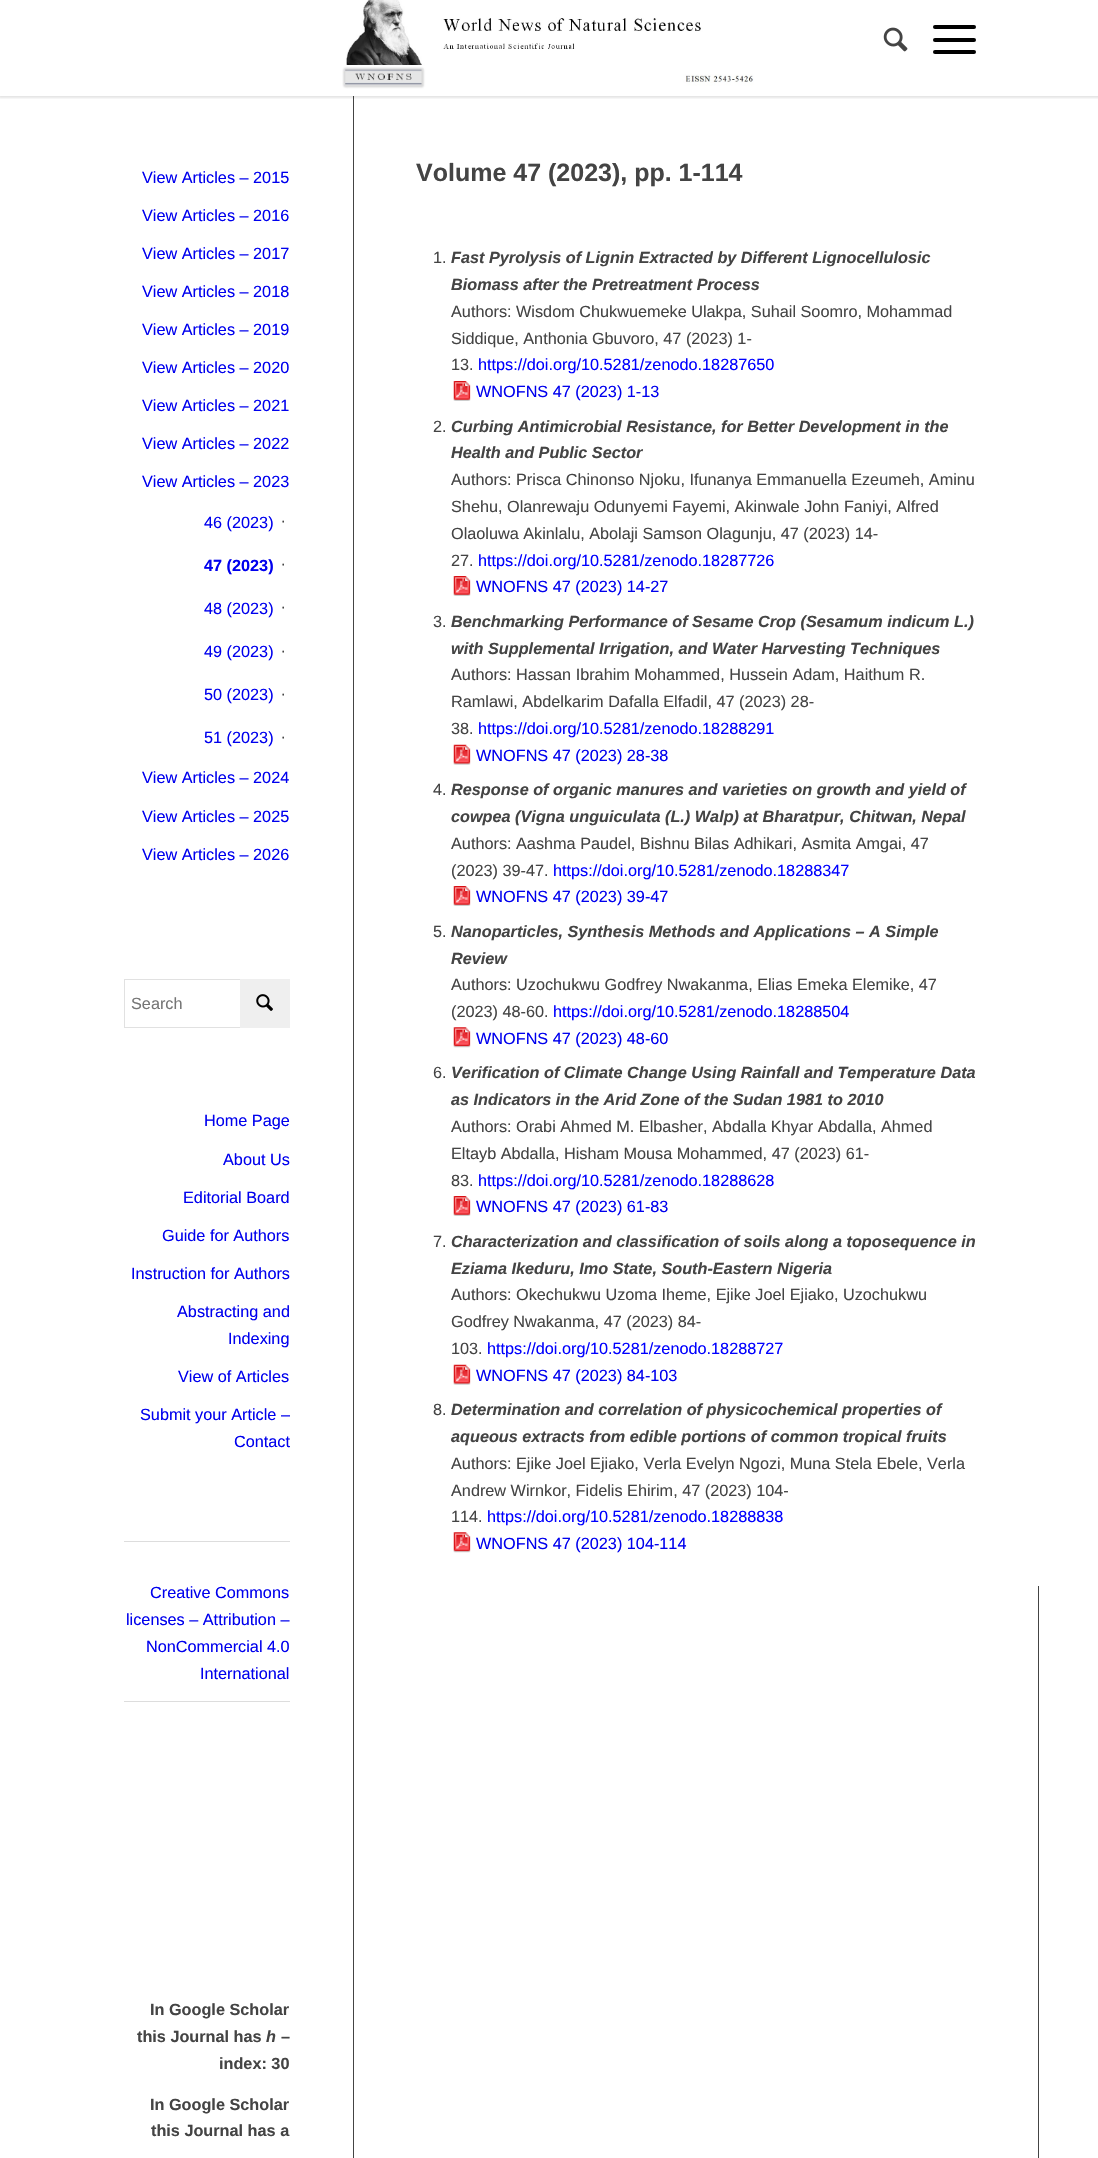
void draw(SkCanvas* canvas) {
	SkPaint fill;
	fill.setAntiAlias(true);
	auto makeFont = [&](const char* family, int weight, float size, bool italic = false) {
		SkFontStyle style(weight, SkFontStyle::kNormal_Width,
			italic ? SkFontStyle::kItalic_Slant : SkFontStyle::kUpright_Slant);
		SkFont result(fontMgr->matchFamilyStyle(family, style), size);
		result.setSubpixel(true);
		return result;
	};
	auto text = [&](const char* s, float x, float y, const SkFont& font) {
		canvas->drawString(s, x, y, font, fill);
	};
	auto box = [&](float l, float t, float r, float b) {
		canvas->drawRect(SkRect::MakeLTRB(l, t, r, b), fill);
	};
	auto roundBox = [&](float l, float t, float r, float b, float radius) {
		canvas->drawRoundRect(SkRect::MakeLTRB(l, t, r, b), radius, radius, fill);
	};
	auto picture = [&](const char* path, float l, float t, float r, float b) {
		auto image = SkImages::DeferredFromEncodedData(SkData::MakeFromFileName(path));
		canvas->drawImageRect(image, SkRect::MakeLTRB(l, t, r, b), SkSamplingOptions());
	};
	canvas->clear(0xFFFFFFFF);
	fill.setColor(0xFF444444);
	box(353, 96, 354, 2158);
	canvas->save();
	canvas->clipRect(SkRect::MakeLTRB(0, 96, 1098, 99));
	fill.setColor(0x1A000000);
	fill.setMaskFilter(SkMaskFilter::MakeBlur(kNormal_SkBlurStyle, 1));
	canvas->drawRect(SkRect::MakeLTRB(-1, -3, 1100, 98), fill);
	fill.setMaskFilter(nullptr);
	canvas->restore();
	picture("image0.png", 342, 0, 754, 89);
	picture("image1.png", 883, 27, 908, 52);
	fill.setColor(0xFF000000);
	roundBox(933, 38, 976, 42, 2);
	roundBox(933, 25, 976, 29, 2);
	roundBox(933, 50, 976, 54, 2);
	fill.setStyle(SkPaint::kStroke_Style);
	fill.setStrokeWidth(1);
	fill.setColor(0xFFE1E1E1);
	canvas->drawRect(SkRect::MakeLTRB(124.5f, 979.5f, 289.5f, 1027.5f), fill);
	fill.setStyle(SkPaint::kFill_Style);
	fill.setColor(0xFFEFEFEF);
	box(240, 979, 290, 1028);
	picture("image2.png", 256, 994, 273, 1011);
	fill.setColor(0xFFDDDDDD);
	box(124, 1541, 290, 1542);
	box(124, 1701, 290, 1702);
	picture("image3.png", 453, 381, 471, 401);
	picture("image3.png", 453, 576, 471, 596);
	picture("image4.png", 453, 744, 471, 765);
	picture("image3.png", 453, 886, 471, 906);
	picture("image5.png", 453, 1027, 471, 1048);
	picture("image3.png", 453, 1196, 471, 1216);
	picture("image4.png", 453, 1364, 471, 1385);
	picture("image5.png", 453, 1532, 471, 1553);
	fill.setColor(0xFF444444);
	box(1038, 1586, 1039, 2158);
	auto font1 = makeFont("Liberation Sans", 400, 16.25f);
	fill.setColor(0xFF0000EE);
	text("View Articles – 2015", 142, 183, font1);
	text("View Articles – 2016", 142, 221, font1);
	text("View Articles – 2017", 142, 259, font1);
	text("View Articles – 2018", 142, 297, font1);
	text("View Articles – 2019", 142, 335, font1);
	text("View Articles – 2020", 142, 373, font1);
	text("View Articles – 2021", 142, 411, font1);
	text("View Articles – 2022", 142, 449, font1);
	text("View Articles – 2023", 142, 487, font1);
	text("46 (2023)", 204, 528, font1);
	fill.setColor(0xFF444444);
	text("∙", 281, 526, font1);
	auto font2 = makeFont("Liberation Sans", 700, 16.25f);
	fill.setColor(0xFF0000EE);
	text("47 (2023)", 204, 571, font2);
	fill.setColor(0xFF444444);
	text("∙", 281, 569, font1);
	fill.setColor(0xFF0000EE);
	text("48 (2023)", 204, 614, font1);
	fill.setColor(0xFF444444);
	text("∙", 281, 612, font1);
	fill.setColor(0xFF0000EE);
	text("49 (2023)", 204, 657, font1);
	fill.setColor(0xFF444444);
	text("∙", 281, 656, font1);
	fill.setColor(0xFF0000EE);
	text("50 (2023)", 204, 700, font1);
	fill.setColor(0xFF444444);
	text("∙", 281, 699, font1);
	fill.setColor(0xFF0000EE);
	text("51 (2023)", 204, 743, font1);
	fill.setColor(0xFF444444);
	text("∙", 281, 742, font1);
	fill.setColor(0xFF0000EE);
	text("View Articles – 2024", 142, 783, font1);
	text("View Articles – 2025", 142, 822, font1);
	text("View Articles – 2026", 142, 860, font1);
	fill.setColor(0xFF757575);
	text("Search", 131, 1009, font1);
	fill.setColor(0xFF0000EE);
	text("Home Page", 204, 1126, font1);
	text("About Us", 223, 1165, font1);
	text("Editorial Board", 183, 1203, font1);
	text("Guide for Authors", 162, 1241, font1);
	text("Instruction for Authors", 131, 1279, font1);
	text("Abstracting and", 177, 1317, font1);
	text("Indexing", 228, 1344, font1);
	text("View of Articles", 178, 1382, font1);
	text("Submit your Article –", 140, 1420, font1);
	text("Contact", 234, 1447, font1);
	text("Creative Commons", 150, 1598, font1);
	text("licenses – Attribution –", 126, 1625, font1);
	text("NonCommercial 4.0", 146, 1652, font1);
	text("International", 200, 1679, font1);
	fill.setColor(0xFF444444);
	text("In Google Scholar", 150, 2015, font2);
	text("this Journal has", 137, 2042, font2);
	auto font3 = makeFont("Liberation Sans", 700, 16.25f, true);
	text("h", 266, 2042, font3);
	text("–", 281, 2042, font2);
	text("index: 30", 219, 2069, font2);
	text("In Google Scholar", 150, 2110, font2);
	text("this Journal has a", 151, 2136, font2);
	auto font4 = makeFont("Liberation Sans", 700, 25);
	text("Volume 47 (2023), pp. 1-114", 416, 181, font4);
	text("1.", 433, 263, font1);
	text("Fast Pyrolysis of Lignin Extracted by Different Lignocellulosic", 451, 263, font3);
	text("Biomass after the Pretreatment Process", 451, 290, font3);
	text("Authors: Wisdom Chukwuemeke Ulakpa, Suhail Soomro, Mohammad", 451, 317, font1);
	text("Siddique, Anthonia Gbuvoro, 47 (2023) 1-", 451, 344, font1);
	text("13.", 451, 370, font1);
	fill.setColor(0xFF0000FF);
	text("https://doi.org/10.5281/zenodo.18287650", 478, 370, font1);
	fill.setColor(0xFF0000EE);
	text("WNOFNS 47 (2023) 1-13", 476, 397, font1);
	fill.setColor(0xFF444444);
	text("2.", 433, 432, font1);
	text("Curbing Antimicrobial Resistance, for Better Development in the", 451, 432, font3);
	text("Health and Public Sector", 451, 458, font3);
	text("Authors: Prisca Chinonso Njoku, Ifunanya Emmanuella Ezeumeh, Aminu", 451, 485, font1);
	text("Shehu, Olanrewaju Odunyemi Fayemi, Akinwale John Faniyi, Alfred", 451, 512, font1);
	text("Olaoluwa Akinlalu, Abolaji Samson Olagunju, 47 (2023) 14-", 451, 539, font1);
	text("27.", 451, 566, font1);
	fill.setColor(0xFF0000FF);
	text("https://doi.org/10.5281/zenodo.18287726", 478, 566, font1);
	fill.setColor(0xFF0000EE);
	text("WNOFNS 47 (2023) 14-27", 476, 592, font1);
	fill.setColor(0xFF444444);
	text("3.", 433, 627, font1);
	text("Benchmarking Performance of Sesame Crop (Sesamum indicum L.)", 451, 627, font3);
	text("with Supplemental Irrigation, and Water Harvesting Techniques", 451, 654, font3);
	text("Authors: Hassan Ibrahim Mohammed, Hussein Adam, Haithum R.", 451, 680, font1);
	text("Ramlawi, Abdelkarim Dafalla Elfadil, 47 (2023) 28-", 451, 707, font1);
	text("38.", 451, 734, font1);
	fill.setColor(0xFF0000FF);
	text("https://doi.org/10.5281/zenodo.18288291", 478, 734, font1);
	fill.setColor(0xFF0000EE);
	text("WNOFNS 47 (2023) 28-38", 476, 761, font1);
	fill.setColor(0xFF444444);
	text("4.", 433, 795, font1);
	text("Response of organic manures and varieties on growth and yield of", 451, 795, font3);
	text("cowpea (Vigna unguiculata (L.) Walp) at Bharatpur, Chitwan, Nepal", 451, 822, font3);
	text("Authors: Aashma Paudel, Bishnu Bilas Adhikari, Asmita Amgai, 47", 451, 849, font1);
	text("(2023) 39-47.", 451, 876, font1);
	fill.setColor(0xFF0000FF);
	text("https://doi.org/10.5281/zenodo.18288347", 553, 876, font1);
	fill.setColor(0xFF0000EE);
	text("WNOFNS 47 (2023) 39-47", 476, 902, font1);
	fill.setColor(0xFF444444);
	text("5.", 433, 937, font1);
	text("Nanoparticles, Synthesis Methods and Applications – A Simple", 451, 937, font3);
	text("Review", 451, 964, font3);
	text("Authors: Uzochukwu Godfrey Nwakanma, Elias Emeka Elemike, 47", 451, 990, font1);
	text("(2023) 48-60.", 451, 1017, font1);
	fill.setColor(0xFF0000FF);
	text("https://doi.org/10.5281/zenodo.18288504", 553, 1017, font1);
	fill.setColor(0xFF0000EE);
	text("WNOFNS 47 (2023) 48-60", 476, 1044, font1);
	fill.setColor(0xFF444444);
	text("6.", 433, 1078, font1);
	text("Verification of Climate Change Using Rainfall and Temperature Data", 451, 1078, font3);
	text("as Indicators in the Arid Zone of the Sudan 1981 to 2010", 451, 1105, font3);
	text("Authors: Orabi Ahmed M. Elbasher, Abdalla Khyar Abdalla, Ahmed", 451, 1132, font1);
	text("Eltayb Abdalla, Hisham Mousa Mohammed, 47 (2023) 61-", 451, 1159, font1);
	text("83.", 451, 1186, font1);
	fill.setColor(0xFF0000FF);
	text("https://doi.org/10.5281/zenodo.18288628", 478, 1186, font1);
	fill.setColor(0xFF0000EE);
	text("WNOFNS 47 (2023) 61-83", 476, 1212, font1);
	fill.setColor(0xFF444444);
	text("7.", 433, 1247, font1);
	text("Characterization and classification of soils along a toposequence in", 451, 1247, font3);
	text("Eziama Ikeduru, Imo State, South-Eastern Nigeria", 451, 1274, font3);
	text("Authors: Okechukwu Uzoma Iheme, Ejike Joel Ejiako, Uzochukwu", 451, 1300, font1);
	text("Godfrey Nwakanma, 47 (2023) 84-", 451, 1327, font1);
	text("103.", 451, 1354, font1);
	fill.setColor(0xFF0000FF);
	text("https://doi.org/10.5281/zenodo.18288727", 487, 1354, font1);
	fill.setColor(0xFF0000EE);
	text("WNOFNS 47 (2023) 84-103", 476, 1381, font1);
	fill.setColor(0xFF444444);
	text("8.", 433, 1415, font1);
	text("Determination and correlation of physicochemical properties of", 451, 1415, font3);
	text("aqueous extracts from edible portions of common tropical fruits", 451, 1442, font3);
	text("Authors: Ejike Joel Ejiako, Verla Evelyn Ngozi, Muna Stela Ebele, Verla", 451, 1469, font1);
	text("Andrew Wirnkor, Fidelis Ehirim, 47 (2023) 104-", 451, 1496, font1);
	text("114.", 451, 1522, font1);
	fill.setColor(0xFF0000FF);
	text("https://doi.org/10.5281/zenodo.18288838", 487, 1522, font1);
	fill.setColor(0xFF0000EE);
	text("WNOFNS 47 (2023) 104-114", 476, 1549, font1);
}
